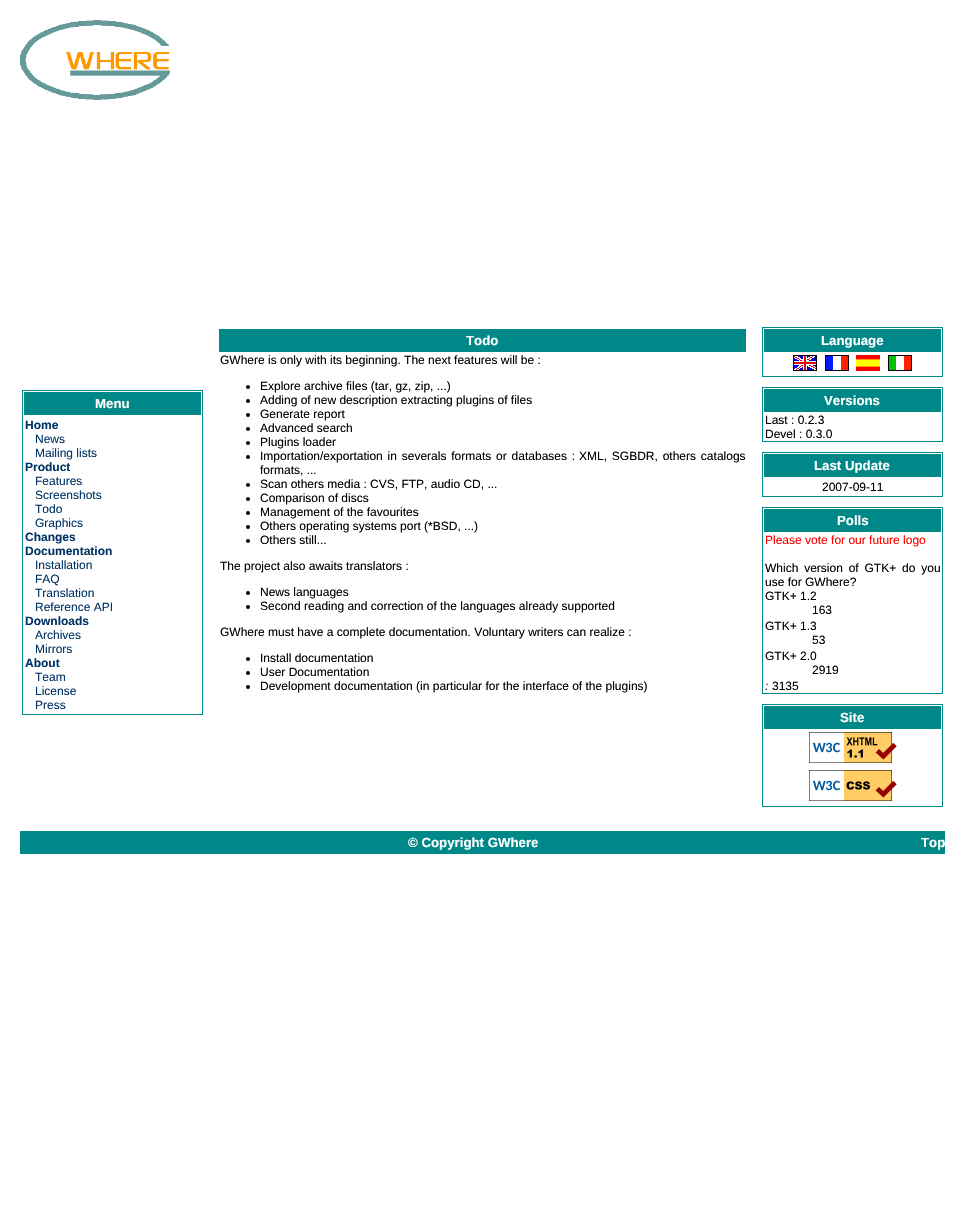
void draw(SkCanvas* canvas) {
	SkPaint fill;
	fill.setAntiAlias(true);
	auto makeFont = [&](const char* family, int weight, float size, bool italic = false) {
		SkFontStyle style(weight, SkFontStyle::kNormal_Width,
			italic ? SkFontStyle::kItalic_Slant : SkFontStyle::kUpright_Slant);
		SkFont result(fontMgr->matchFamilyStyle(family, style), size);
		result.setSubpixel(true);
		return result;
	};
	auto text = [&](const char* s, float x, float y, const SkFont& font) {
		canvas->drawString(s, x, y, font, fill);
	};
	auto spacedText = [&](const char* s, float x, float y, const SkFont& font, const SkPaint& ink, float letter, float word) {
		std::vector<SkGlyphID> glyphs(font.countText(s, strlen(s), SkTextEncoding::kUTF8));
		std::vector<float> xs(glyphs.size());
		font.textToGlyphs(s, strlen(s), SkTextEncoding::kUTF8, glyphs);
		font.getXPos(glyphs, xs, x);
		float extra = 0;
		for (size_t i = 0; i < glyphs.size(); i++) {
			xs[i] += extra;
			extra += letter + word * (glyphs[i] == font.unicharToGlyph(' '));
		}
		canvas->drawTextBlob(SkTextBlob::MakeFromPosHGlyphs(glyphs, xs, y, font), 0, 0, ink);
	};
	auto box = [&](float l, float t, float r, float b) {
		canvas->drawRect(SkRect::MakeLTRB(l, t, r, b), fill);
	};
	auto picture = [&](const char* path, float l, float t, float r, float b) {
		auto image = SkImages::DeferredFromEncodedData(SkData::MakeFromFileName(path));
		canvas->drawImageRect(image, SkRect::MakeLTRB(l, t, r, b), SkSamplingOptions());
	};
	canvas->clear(0xFFFFFFFF);
	picture("image0.png", 20, 20, 170, 100);
	fill.setStyle(SkPaint::kStroke_Style);
	fill.setStrokeWidth(1);
	fill.setColor(0xFF008787);
	canvas->drawRect(SkRect::MakeLTRB(22.5f, 390.5f, 202.5f, 714.5f), fill);
	fill.setStyle(SkPaint::kFill_Style);
	box(24, 392, 201, 415);
	box(219, 329, 746, 352);
	fill.setColor(0xFF000000);
	canvas->drawCircle(248, 387, 2, fill);
	canvas->drawCircle(248, 401, 2, fill);
	canvas->drawCircle(248, 415, 2, fill);
	canvas->drawCircle(248, 429, 2, fill);
	canvas->drawCircle(248, 443, 2, fill);
	canvas->drawCircle(248, 457, 2, fill);
	canvas->drawCircle(248, 485, 2, fill);
	canvas->drawCircle(248, 499, 2, fill);
	canvas->drawCircle(248, 513, 2, fill);
	canvas->drawCircle(248, 527, 2, fill);
	canvas->drawCircle(248, 541, 2, fill);
	canvas->drawCircle(248, 593, 2, fill);
	canvas->drawCircle(248, 607, 2, fill);
	canvas->drawCircle(248, 659, 2, fill);
	canvas->drawCircle(248, 673, 2, fill);
	canvas->drawCircle(248, 687, 2, fill);
	fill.setStyle(SkPaint::kStroke_Style);
	fill.setColor(0xFF008787);
	canvas->drawRect(SkRect::MakeLTRB(762.5f, 327.5f, 942.5f, 376.5f), fill);
	fill.setStyle(SkPaint::kFill_Style);
	box(764, 329, 941, 352);
	picture("image1.png", 793, 355, 817, 371);
	picture("image2.png", 825, 355, 849, 371);
	picture("image3.png", 856, 355, 880, 371);
	picture("image4.png", 888, 355, 912, 371);
	fill.setStyle(SkPaint::kStroke_Style);
	canvas->drawRect(SkRect::MakeLTRB(762.5f, 387.5f, 942.5f, 441.5f), fill);
	fill.setStyle(SkPaint::kFill_Style);
	box(764, 389, 941, 412);
	fill.setStyle(SkPaint::kStroke_Style);
	canvas->drawRect(SkRect::MakeLTRB(762.5f, 452.5f, 942.5f, 496.5f), fill);
	fill.setStyle(SkPaint::kFill_Style);
	box(764, 454, 941, 477);
	fill.setStyle(SkPaint::kStroke_Style);
	canvas->drawRect(SkRect::MakeLTRB(762.5f, 507.5f, 942.5f, 693.5f), fill);
	fill.setStyle(SkPaint::kFill_Style);
	box(764, 509, 941, 532);
	fill.setStyle(SkPaint::kStroke_Style);
	canvas->drawRect(SkRect::MakeLTRB(762.5f, 704.5f, 942.5f, 806.5f), fill);
	fill.setStyle(SkPaint::kFill_Style);
	box(764, 706, 941, 729);
	picture("image5.png", 809, 732, 897, 763);
	picture("image6.png", 809, 770, 897, 801);
	box(20, 831, 945, 854);
	auto font1 = makeFont("Liberation Sans", 700, 13.25f);
	fill.setColor(0xFFFFFFFF);
	text("Menu", 95, 408, font1);
	auto font2 = makeFont("Liberation Sans", 700, 12);
	fill.setColor(0xFF003366);
	text("Home", 25, 429, font2);
	auto font3 = makeFont("Liberation Sans", 400, 12);
	text("News", 35, 443, font3);
	text("Mailing lists", 35, 457, font3);
	text("Product", 25, 471, font2);
	text("Features", 35, 485, font3);
	text("Screenshots", 35, 499, font3);
	text("Todo", 35, 513, font3);
	text("Graphics", 35, 527, font3);
	text("Changes", 25, 541, font2);
	text("Documentation", 25, 555, font2);
	text("Installation", 35, 569, font3);
	text("FAQ", 35, 583, font3);
	text("Translation", 35, 597, font3);
	text("Reference API", 35, 611, font3);
	text("Downloads", 25, 625, font2);
	text("Archives", 35, 639, font3);
	text("Mirrors", 35, 653, font3);
	text("About", 25, 667, font2);
	text("Team", 35, 681, font3);
	text("License", 35, 695, font3);
	text("Press", 35, 709, font3);
	fill.setColor(0xFFFFFFFF);
	text("Todo", 466, 345, font1);
	fill.setColor(0xFF000000);
	text("GWhere is only with its beginning. The next features will be :", 220, 364, font3);
	text("Explore archive files (tar, gz, zip, ...)", 260, 390, font3);
	text("Adding of new description extracting plugins of files", 260, 404, font3);
	text("Generate report", 260, 418, font3);
	text("Advanced search", 260, 432, font3);
	text("Plugins loader", 260, 446, font3);
	spacedText("Importation/exportation in severals formats or databases :", 260, 460, font3, fill, 0, 1.5f);
	spacedText("XML, SGBDR, others catalogs", 579, 460, font3, fill, 0, 1.5f);
	text("formats, ...", 260, 474, font3);
	text("Scan others media : CVS, FTP, audio CD, ...", 260, 488, font3);
	text("Comparison of discs", 260, 502, font3);
	text("Management of the favourites", 260, 516, font3);
	text("Others operating systems port (*BSD, ...)", 260, 530, font3);
	text("Others still...", 260, 544, font3);
	text("The project also awaits translators :", 220, 570, font3);
	text("News languages", 260, 596, font3);
	text("Second reading and correction of the languages already supported", 260, 610, font3);
	text("GWhere must have a complete documentation. Voluntary writers can realize :", 220, 636, font3);
	text("Install documentation", 260, 662, font3);
	text("User Documentation", 260, 676, font3);
	text("Development documentation (in particular for the interface of the plugins)", 260, 690, font3);
	fill.setColor(0xFFFFFFFF);
	text("Language", 821, 345, font1);
	text("Versions", 824, 405, font1);
	fill.setColor(0xFF000000);
	text("Last : 0.2.3", 765, 424, font3);
	text("Devel : 0.3.0", 765, 438, font3);
	fill.setColor(0xFFFFFFFF);
	text("Last Update", 814, 470, font1);
	fill.setColor(0xFF000000);
	text("2007-09-11", 822, 491, font3);
	fill.setColor(0xFFFFFFFF);
	text("Polls", 837, 525, font1);
	fill.setColor(0xFFFF0000);
	text("Please vote for our future logo", 765, 544, font3);
	fill.setColor(0xFF000000);
	spacedText("Which version of GTK+ do you", 765, 572, font3, fill, 0, 2.5f);
	text("use for GWhere?", 765, 586, font3);
	text("GTK+ 1.2", 765, 600, font3);
	text("163", 812, 614, font3);
	text("GTK+ 1.3", 765, 630, font3);
	text("53", 812, 644, font3);
	text("GTK+ 2.0", 765, 660, font3);
	text("2919", 812, 674, font3);
	auto font4 = makeFont("Liberation Sans", 400, 12, true);
	text(":", 765, 690, font4);
	text("3135", 772, 690, font3);
	fill.setColor(0xFFFFFFFF);
	text("Site", 840, 722, font1);
	text("© Copyright GWhere", 408, 847, font1);
	text("Top", 921, 847, font1);
}
